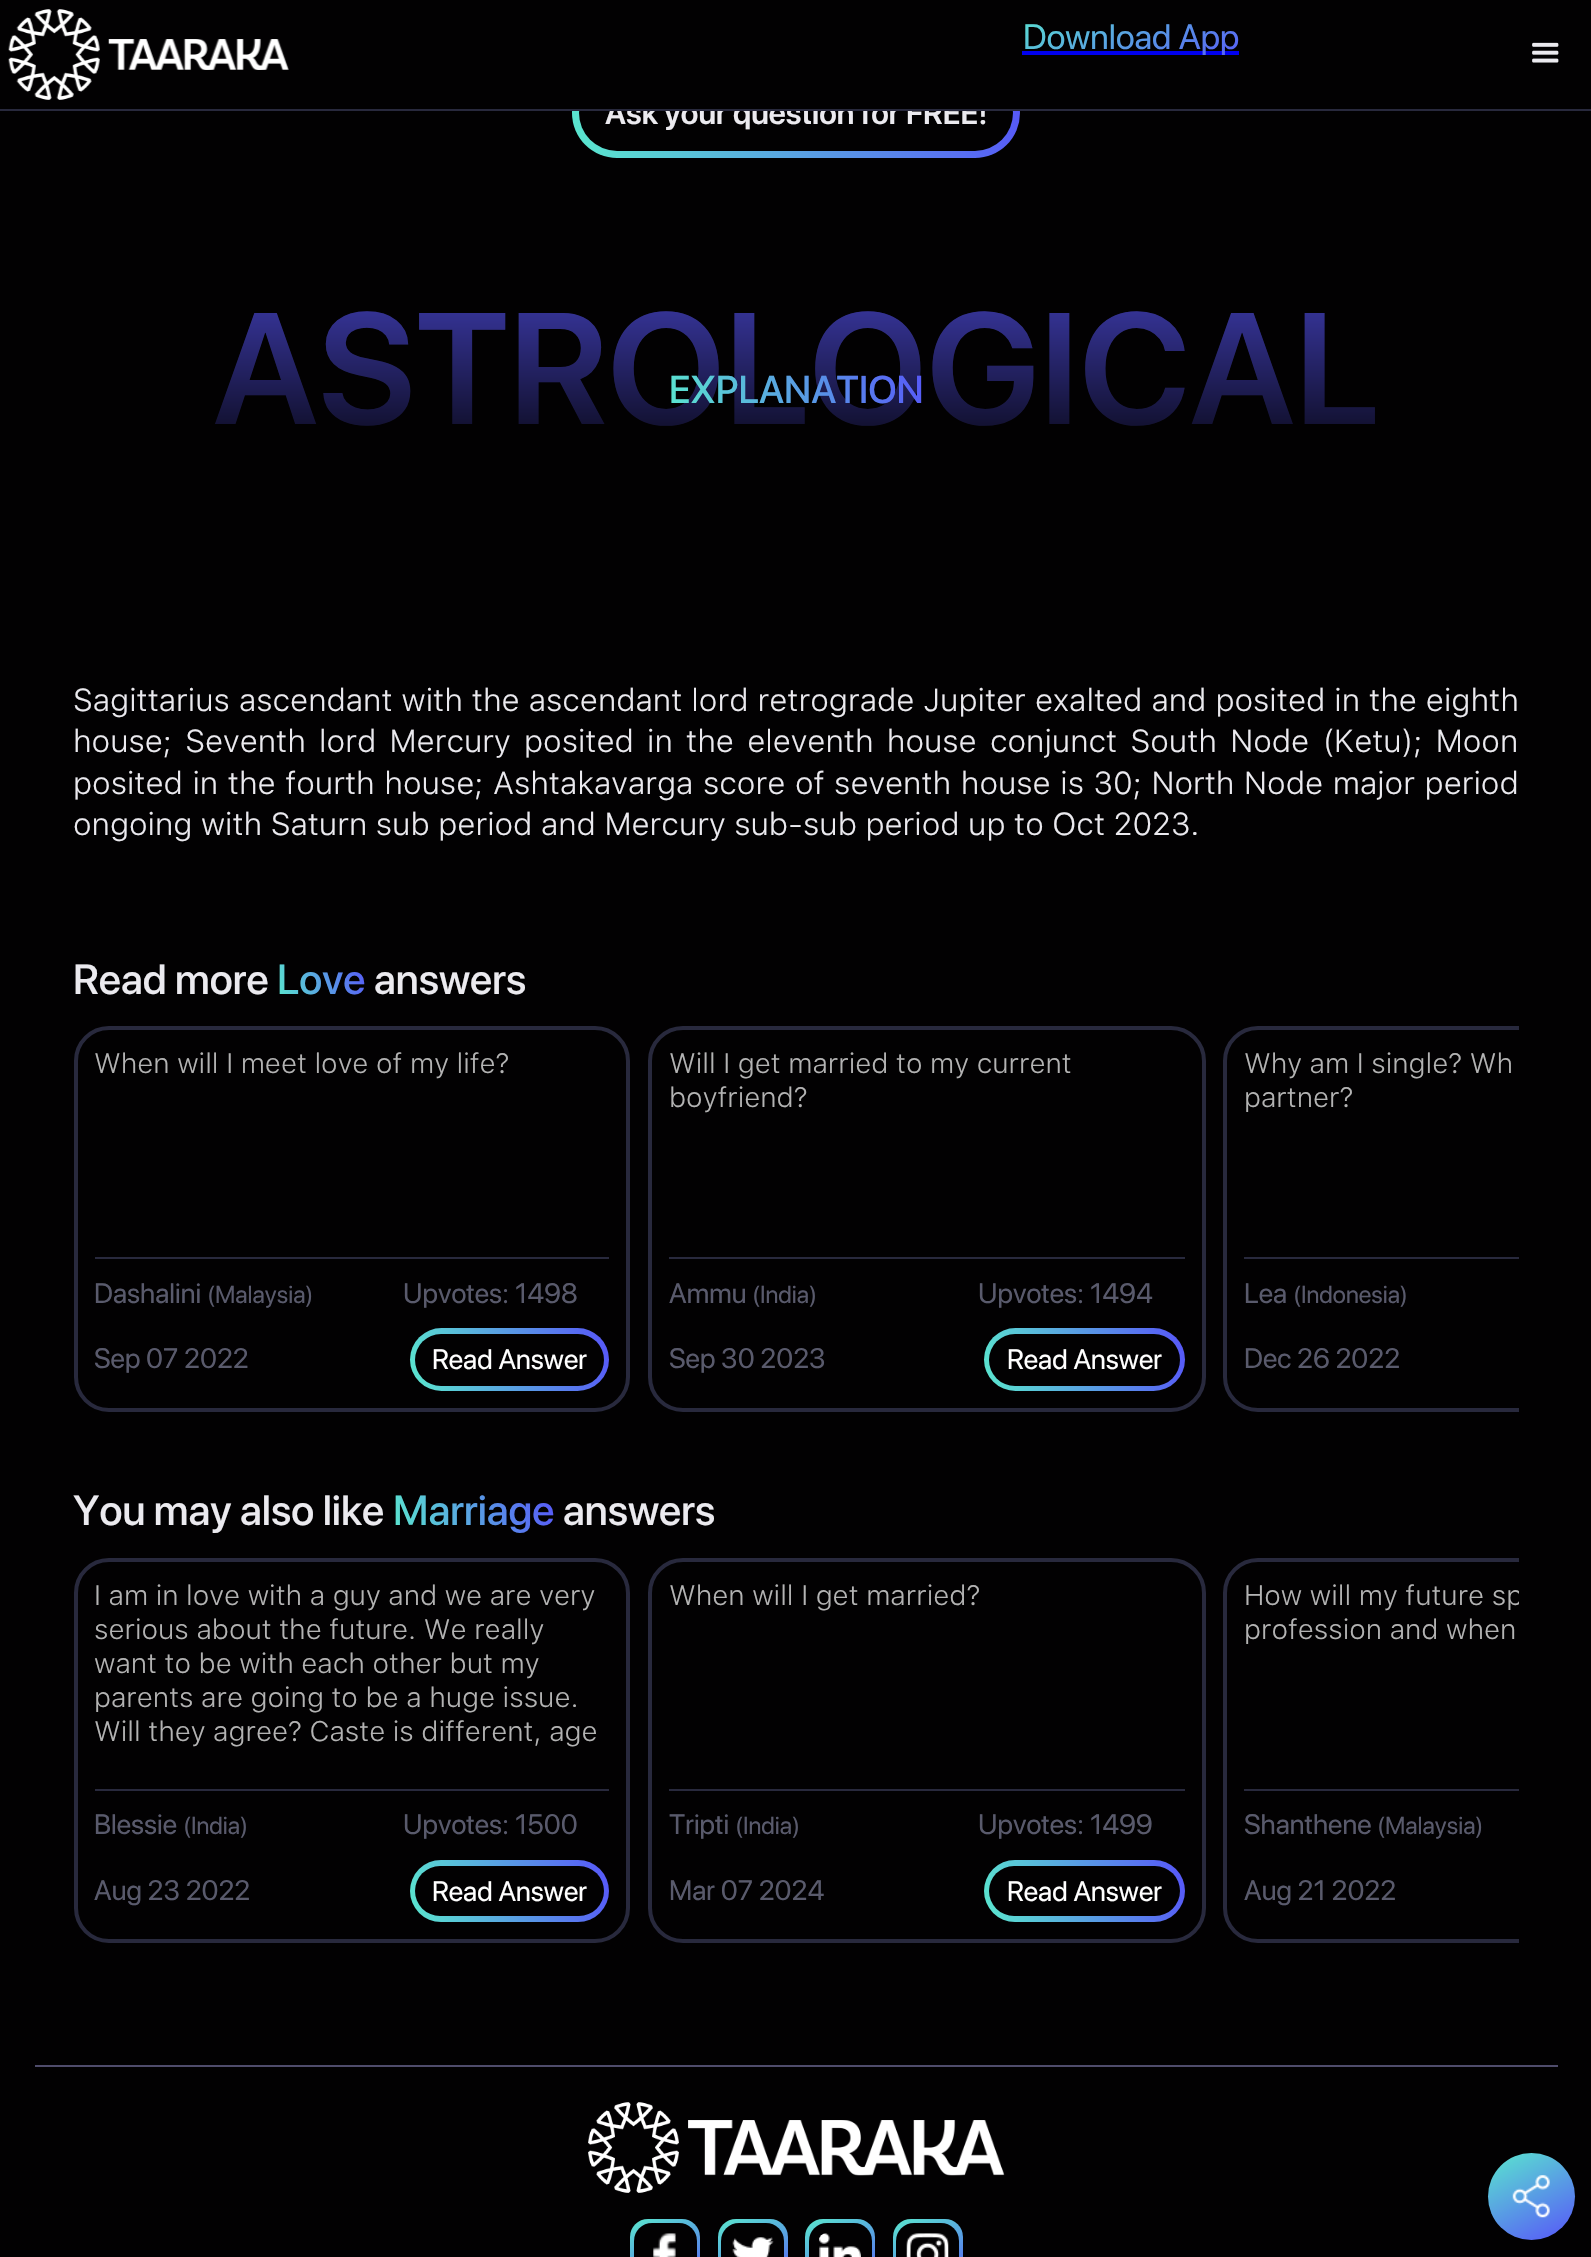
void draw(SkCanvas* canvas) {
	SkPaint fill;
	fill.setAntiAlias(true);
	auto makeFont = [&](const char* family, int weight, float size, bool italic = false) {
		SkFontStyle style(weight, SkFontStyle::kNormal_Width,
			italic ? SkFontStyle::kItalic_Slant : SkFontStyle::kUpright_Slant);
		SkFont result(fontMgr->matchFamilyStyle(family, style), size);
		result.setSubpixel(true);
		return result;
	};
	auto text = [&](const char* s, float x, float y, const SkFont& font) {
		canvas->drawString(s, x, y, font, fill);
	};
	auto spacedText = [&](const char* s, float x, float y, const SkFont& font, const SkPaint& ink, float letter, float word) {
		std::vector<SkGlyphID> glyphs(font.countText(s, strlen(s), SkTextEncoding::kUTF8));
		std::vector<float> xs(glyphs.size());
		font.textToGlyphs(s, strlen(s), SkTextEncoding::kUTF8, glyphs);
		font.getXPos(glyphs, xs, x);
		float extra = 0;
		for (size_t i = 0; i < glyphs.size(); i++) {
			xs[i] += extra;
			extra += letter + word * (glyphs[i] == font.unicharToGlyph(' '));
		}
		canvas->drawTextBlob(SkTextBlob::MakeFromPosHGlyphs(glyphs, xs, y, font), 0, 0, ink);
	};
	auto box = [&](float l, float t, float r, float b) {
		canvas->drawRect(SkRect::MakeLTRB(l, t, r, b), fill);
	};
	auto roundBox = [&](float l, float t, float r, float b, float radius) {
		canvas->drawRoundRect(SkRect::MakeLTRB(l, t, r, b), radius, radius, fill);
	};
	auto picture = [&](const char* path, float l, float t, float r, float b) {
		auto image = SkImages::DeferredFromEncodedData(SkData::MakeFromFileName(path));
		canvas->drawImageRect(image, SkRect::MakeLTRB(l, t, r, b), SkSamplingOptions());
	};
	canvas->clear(0xFF020102);
	picture("image0.png", 8, 9, 100, 100);
	picture("image1.png", 108, 39, 289, 70);
	fill.setColor(0xFF0000EE);
	box(1022, 51, 1239, 55);
	picture("image2.png", 1532, 42, 1559, 63);
	{
		const SkColor colors[] = {0xFF5AE8CE, 0xFF5755F9};
		const float stops[] = {0, 1};
		const SkPoint ends[] = {{577, 176}, {1015, 50}};
		fill.setShader(SkGradientShader::MakeLinear(ends, colors, stops, 2, SkTileMode::kClamp));
		fill.setAlpha(255);
	}
	roundBox(572, 68, 1020, 158, 45);
	fill.setShader(nullptr);
	fill.setColor(0xFF020102);
	roundBox(579, 75, 1013, 151, 38);
	fill.setStyle(SkPaint::kStroke_Style);
	fill.setStrokeWidth(4);
	fill.setColor(0xFF28293D);
	canvas->drawRoundRect(SkRect::MakeLTRB(76, 1028, 628, 1410), 33, 33, fill);
	fill.setStyle(SkPaint::kFill_Style);
	box(95, 1257, 609, 1259);
	{
		const SkColor colors[] = {0xFF5AE8CE, 0xFF5755F9};
		const float stops[] = {0, 1};
		const SkPoint ends[] = {{409, 1389}, {610, 1331}};
		fill.setShader(SkGradientShader::MakeLinear(ends, colors, stops, 2, SkTileMode::kClamp));
		fill.setAlpha(255);
	}
	roundBox(410, 1328, 609, 1391, 31.5f);
	fill.setShader(nullptr);
	fill.setColor(0xFF020102);
	roundBox(415, 1334, 604, 1386, 26);
	fill.setStyle(SkPaint::kStroke_Style);
	fill.setColor(0xFF28293D);
	canvas->drawRoundRect(SkRect::MakeLTRB(650, 1028, 1204, 1410), 33, 33, fill);
	fill.setStyle(SkPaint::kFill_Style);
	box(669, 1257, 1185, 1259);
	{
		const SkColor colors[] = {0xFF5AE8CE, 0xFF5755F9};
		const float stops[] = {0, 1};
		const SkPoint ends[] = {{983, 1389}, {1185, 1331}};
		fill.setShader(SkGradientShader::MakeLinear(ends, colors, stops, 2, SkTileMode::kClamp));
		fill.setAlpha(255);
	}
	roundBox(984, 1328, 1185, 1391, 31.5f);
	fill.setShader(nullptr);
	fill.setColor(0xFF020102);
	roundBox(989, 1334, 1180, 1386, 26);
	canvas->save();
	canvas->clipRect(SkRect::MakeLTRB(74, 1026, 1519, 1447));
	fill.setStyle(SkPaint::kStroke_Style);
	fill.setColor(0xFF28293D);
	canvas->drawRoundRect(SkRect::MakeLTRB(1225, 1028, 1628, 1410), 33, 33, fill);
	canvas->restore();
	fill.setStyle(SkPaint::kFill_Style);
	box(1244, 1257, 1519, 1259);
	fill.setStyle(SkPaint::kStroke_Style);
	canvas->drawRoundRect(SkRect::MakeLTRB(76, 1560, 628, 1941), 33, 33, fill);
	fill.setStyle(SkPaint::kFill_Style);
	box(95, 1789, 609, 1791);
	{
		const SkColor colors[] = {0xFF5AE8CE, 0xFF5755F9};
		const float stops[] = {0, 1};
		const SkPoint ends[] = {{409, 1920}, {610, 1862}};
		fill.setShader(SkGradientShader::MakeLinear(ends, colors, stops, 2, SkTileMode::kClamp));
		fill.setAlpha(255);
	}
	roundBox(410, 1860, 609, 1922, 31);
	fill.setShader(nullptr);
	fill.setColor(0xFF020102);
	roundBox(415, 1866, 604, 1916, 25);
	fill.setStyle(SkPaint::kStroke_Style);
	fill.setColor(0xFF28293D);
	canvas->drawRoundRect(SkRect::MakeLTRB(650, 1560, 1204, 1941), 33, 33, fill);
	fill.setStyle(SkPaint::kFill_Style);
	box(669, 1789, 1185, 1791);
	{
		const SkColor colors[] = {0xFF5AE8CE, 0xFF5755F9};
		const float stops[] = {0, 1};
		const SkPoint ends[] = {{983, 1920}, {1185, 1862}};
		fill.setShader(SkGradientShader::MakeLinear(ends, colors, stops, 2, SkTileMode::kClamp));
		fill.setAlpha(255);
	}
	roundBox(984, 1860, 1185, 1922, 31);
	fill.setShader(nullptr);
	fill.setColor(0xFF020102);
	roundBox(989, 1866, 1180, 1916, 25);
	canvas->save();
	canvas->clipRect(SkRect::MakeLTRB(74, 1558, 1519, 1978));
	fill.setStyle(SkPaint::kStroke_Style);
	fill.setColor(0xFF28293D);
	canvas->drawRoundRect(SkRect::MakeLTRB(1225, 1560, 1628, 1941), 33, 33, fill);
	canvas->restore();
	fill.setStyle(SkPaint::kFill_Style);
	box(1244, 1789, 1519, 1791);
	fill.setColor(0xFF4F4C6B);
	box(35, 2065, 1558, 2067);
	picture("image3.png", 588, 2102, 679, 2193);
	picture("image4.png", 688, 2120, 1005, 2176);
	{
		const SkColor colors[] = {0xFF5AE8CE, 0xFF5755F9};
		const float stops[] = {0, 1};
		const SkPoint ends[] = {{643, 2212}, {687, 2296}};
		fill.setShader(SkGradientShader::MakeLinear(ends, colors, stops, 2, SkTileMode::kClamp));
		fill.setAlpha(255);
	}
	roundBox(630, 2219, 700, 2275, 18);
	fill.setShader(nullptr);
	fill.setColor(0xFF020102);
	roundBox(634, 2223, 697, 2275, 18);
	picture("image5.png", 653, 2233, 676, 2257);
	{
		const SkColor colors[] = {0xFF5AE8CE, 0xFF5755F9};
		const float stops[] = {0, 1};
		const SkPoint ends[] = {{730, 2212}, {775, 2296}};
		fill.setShader(SkGradientShader::MakeLinear(ends, colors, stops, 2, SkTileMode::kClamp));
		fill.setAlpha(255);
	}
	roundBox(718, 2219, 788, 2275, 18);
	fill.setShader(nullptr);
	fill.setColor(0xFF020102);
	roundBox(721, 2223, 784, 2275, 18);
	picture("image6.png", 732, 2237, 774, 2257);
	{
		const SkColor colors[] = {0xFF5AE8CE, 0xFF5755F9};
		const float stops[] = {0, 1};
		const SkPoint ends[] = {{818, 2212}, {862, 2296}};
		fill.setShader(SkGradientShader::MakeLinear(ends, colors, stops, 2, SkTileMode::kClamp));
		fill.setAlpha(255);
	}
	roundBox(805, 2219, 875, 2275, 18);
	fill.setShader(nullptr);
	fill.setColor(0xFF020102);
	roundBox(809, 2223, 872, 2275, 18);
	picture("image7.png", 819, 2233, 861, 2257);
	{
		const SkColor colors[] = {0xFF5AE8CE, 0xFF5755F9};
		const float stops[] = {0, 1};
		const SkPoint ends[] = {{905, 2212}, {950, 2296}};
		fill.setShader(SkGradientShader::MakeLinear(ends, colors, stops, 2, SkTileMode::kClamp));
		fill.setAlpha(255);
	}
	roundBox(893, 2219, 963, 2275, 18);
	fill.setShader(nullptr);
	fill.setColor(0xFF020102);
	roundBox(896, 2223, 959, 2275, 18);
	picture("image8.png", 906, 2233, 949, 2257);
	{
		const SkColor colors[] = {0xFF5AE8CE, 0xFF5755F9};
		const float stops[] = {0, 1};
		const SkPoint ends[] = {{1503, 2144}, {1559, 2248}};
		fill.setShader(SkGradientShader::MakeLinear(ends, colors, stops, 2, SkTileMode::kClamp));
		fill.setAlpha(255);
	}
	canvas->drawCircle(1531.5f, 2196.5f, 43.5f, fill);
	picture("image9.png", 1512, 2175, 1550, 2218);
	auto font1 = makeFont("SF Pro Display", 400, 35);
	{
		const SkColor colors[] = {0xFF5AE8CE, 0xFF5755F9};
		const float stops[] = {0, 1};
		const SkPoint ends[] = {{1095, -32}, {1167, 105}};
		fill.setShader(SkGradientShader::MakeLinear(ends, colors, stops, 2, SkTileMode::kClamp));
		fill.setAlpha(255);
	}
	text("Download App", 1023, 49, font1);
	auto font2 = makeFont("SF Pro Display", 600, 31.5f);
	fill.setShader(nullptr);
	fill.setColor(0xFFEBEAEF);
	text("Ask your question for FREE!", 605, 124, font2);
	fill.setColor(0xFF28293D);
	box(0, 109, 1591, 111);
	fill.setColor(0xFF020102);
	box(572, 68, 1020, 109);
	auto font3 = makeFont("SF Pro Display", 600, 157.5f);
	{
		const SkColor colors[] = {0xFF4240BB, 0xFF05040B, 0xFF020102};
		const float stops[] = {0, 1, 1};
		const SkPoint ends[] = {{796, 263}, {796, 473}};
		fill.setShader(SkGradientShader::MakeLinear(ends, colors, stops, 3, SkTileMode::kClamp));
		fill.setAlpha(255);
	}
	text("ASTROLOGICAL", 213, 424, font3);
	auto font4 = makeFont("SF Pro Display", 500, 38.5f);
	{
		const SkColor colors[] = {0xFF5AE8CE, 0xFF5755F9};
		const float stops[] = {0, 1};
		const SkPoint ends[] = {{668, 426}, {924, 352}};
		fill.setShader(SkGradientShader::MakeLinear(ends, colors, stops, 2, SkTileMode::kClamp));
		fill.setAlpha(255);
	}
	text("EXPLANATION", 669, 403, font4);
	auto font5 = makeFont("SF Pro Text", 300, 31.5f);
	fill.setShader(nullptr);
	fill.setColor(0xFFEBEAEF);
	spacedText("Sagittarius ascendant with the ascendant lord retrograde Jupiter exalted and posited in the eighth", 73, 711, font5, fill, 0, 0.5f);
	spacedText("house; Seventh lord Mercury posited in the eleventh house conjunct South Node (Ketu); Moon", 73, 752, font5, fill, 0, 4.75f);
	spacedText("posited in the fourth house; Ashtakavarga score of seventh house is 30; North Node major period", 73, 794, font5, fill, 0, 1.1f);
	text("ongoing with Saturn sub period and Mercury sub-sub period up to Oct 2023.", 73, 835, font5);
	auto font6 = makeFont("SF Pro Display", 500, 42);
	text("Read more", 73, 994, font6);
	{
		const SkColor colors[] = {0xFF5AE8CE, 0xFF5755F9};
		const float stops[] = {0, 1};
		const SkPoint ends[] = {{273, 993}, {370, 965}};
		fill.setShader(SkGradientShader::MakeLinear(ends, colors, stops, 2, SkTileMode::kClamp));
		fill.setAlpha(255);
	}
	text("Love", 277, 994, font6);
	fill.setShader(nullptr);
	fill.setColor(0xFFEBEAEF);
	text("answers", 374, 994, font6);
	auto font7 = makeFont("SF Pro Text", 300, 28);
	fill.setColor(0xFFB3B3B3);
	text("When will I meet love of my life?", 94, 1073, font7);
	auto font8 = makeFont("SF Pro Display", 400, 28);
	fill.setColor(0xFF595A6C);
	text("Dashalini", 94, 1303, font8);
	auto font9 = makeFont("SF Pro Display", 400, 24.5f);
	text("(Malaysia)", 207, 1303, font9);
	text("Upvotes: 1498", 403, 1303, font8);
	text("Sep 07 2022", 94, 1368, font8);
	fill.setColor(0xFFFFFFFF);
	text("Read Answer", 432, 1369, font8);
	fill.setColor(0xFFB3B3B3);
	text("Will I get married to my current", 669, 1073, font7);
	text("boyfriend?", 669, 1107, font7);
	fill.setColor(0xFF595A6C);
	text("Ammu", 669, 1303, font8);
	text("(India)", 752, 1303, font9);
	text("Upvotes: 1494", 978, 1303, font8);
	text("Sep 30 2023", 669, 1368, font8);
	fill.setColor(0xFFFFFFFF);
	text("Read Answer", 1007, 1369, font8);
	fill.setColor(0xFFB3B3B3);
	text("Why am I single? Wh", 1244, 1073, font7);
	text("partner?", 1244, 1107, font7);
	fill.setColor(0xFF595A6C);
	text("Lea", 1244, 1303, font8);
	text("(Indonesia)", 1293, 1303, font9);
	text("Dec 26 2022", 1244, 1368, font8);
	fill.setColor(0xFFEBEAEF);
	text("You may also like", 73, 1525, font6);
	{
		const SkColor colors[] = {0xFF5AE8CE, 0xFF5755F9};
		const float stops[] = {0, 1};
		const SkPoint ends[] = {{391, 1534}, {556, 1487}};
		fill.setShader(SkGradientShader::MakeLinear(ends, colors, stops, 2, SkTileMode::kClamp));
		fill.setAlpha(255);
	}
	text("Marriage", 393, 1525, font6);
	fill.setShader(nullptr);
	fill.setColor(0xFFEBEAEF);
	text("answers", 563, 1525, font6);
	fill.setColor(0xFFB3B3B3);
	text("I am in love with a guy and we are very", 94, 1605, font7);
	text("serious about the future. We really", 94, 1639, font7);
	text("want to be with each other but my", 94, 1673, font7);
	text("parents are going to be a huge issue.", 94, 1707, font7);
	text("Will they agree? Caste is different, age", 94, 1741, font7);
	fill.setColor(0xFF595A6C);
	text("Blessie", 94, 1834, font8);
	text("(India)", 183, 1834, font9);
	text("Upvotes: 1500", 403, 1834, font8);
	text("Aug 23 2022", 94, 1900, font8);
	fill.setColor(0xFFFFFFFF);
	text("Read Answer", 432, 1901, font8);
	fill.setColor(0xFFB3B3B3);
	text("When will I get married?", 669, 1605, font7);
	fill.setColor(0xFF595A6C);
	text("Tripti", 669, 1834, font8);
	text("(India)", 735, 1834, font9);
	text("Upvotes: 1499", 978, 1834, font8);
	text("Mar 07 2024", 669, 1900, font8);
	fill.setColor(0xFFFFFFFF);
	text("Read Answer", 1007, 1901, font8);
	canvas->save();
	canvas->clipRect(SkRect::MakeLTRB(1244, 1579, 1519, 1647));
	fill.setColor(0xFFB3B3B3);
	text("How will my future sp", 1244, 1605, font7);
	canvas->restore();
	text("profession and when", 1244, 1639, font7);
	fill.setColor(0xFF595A6C);
	text("Shanthene", 1244, 1834, font8);
	text("(Malaysia)", 1377, 1834, font9);
	text("Aug 21 2022", 1244, 1900, font8);
}
